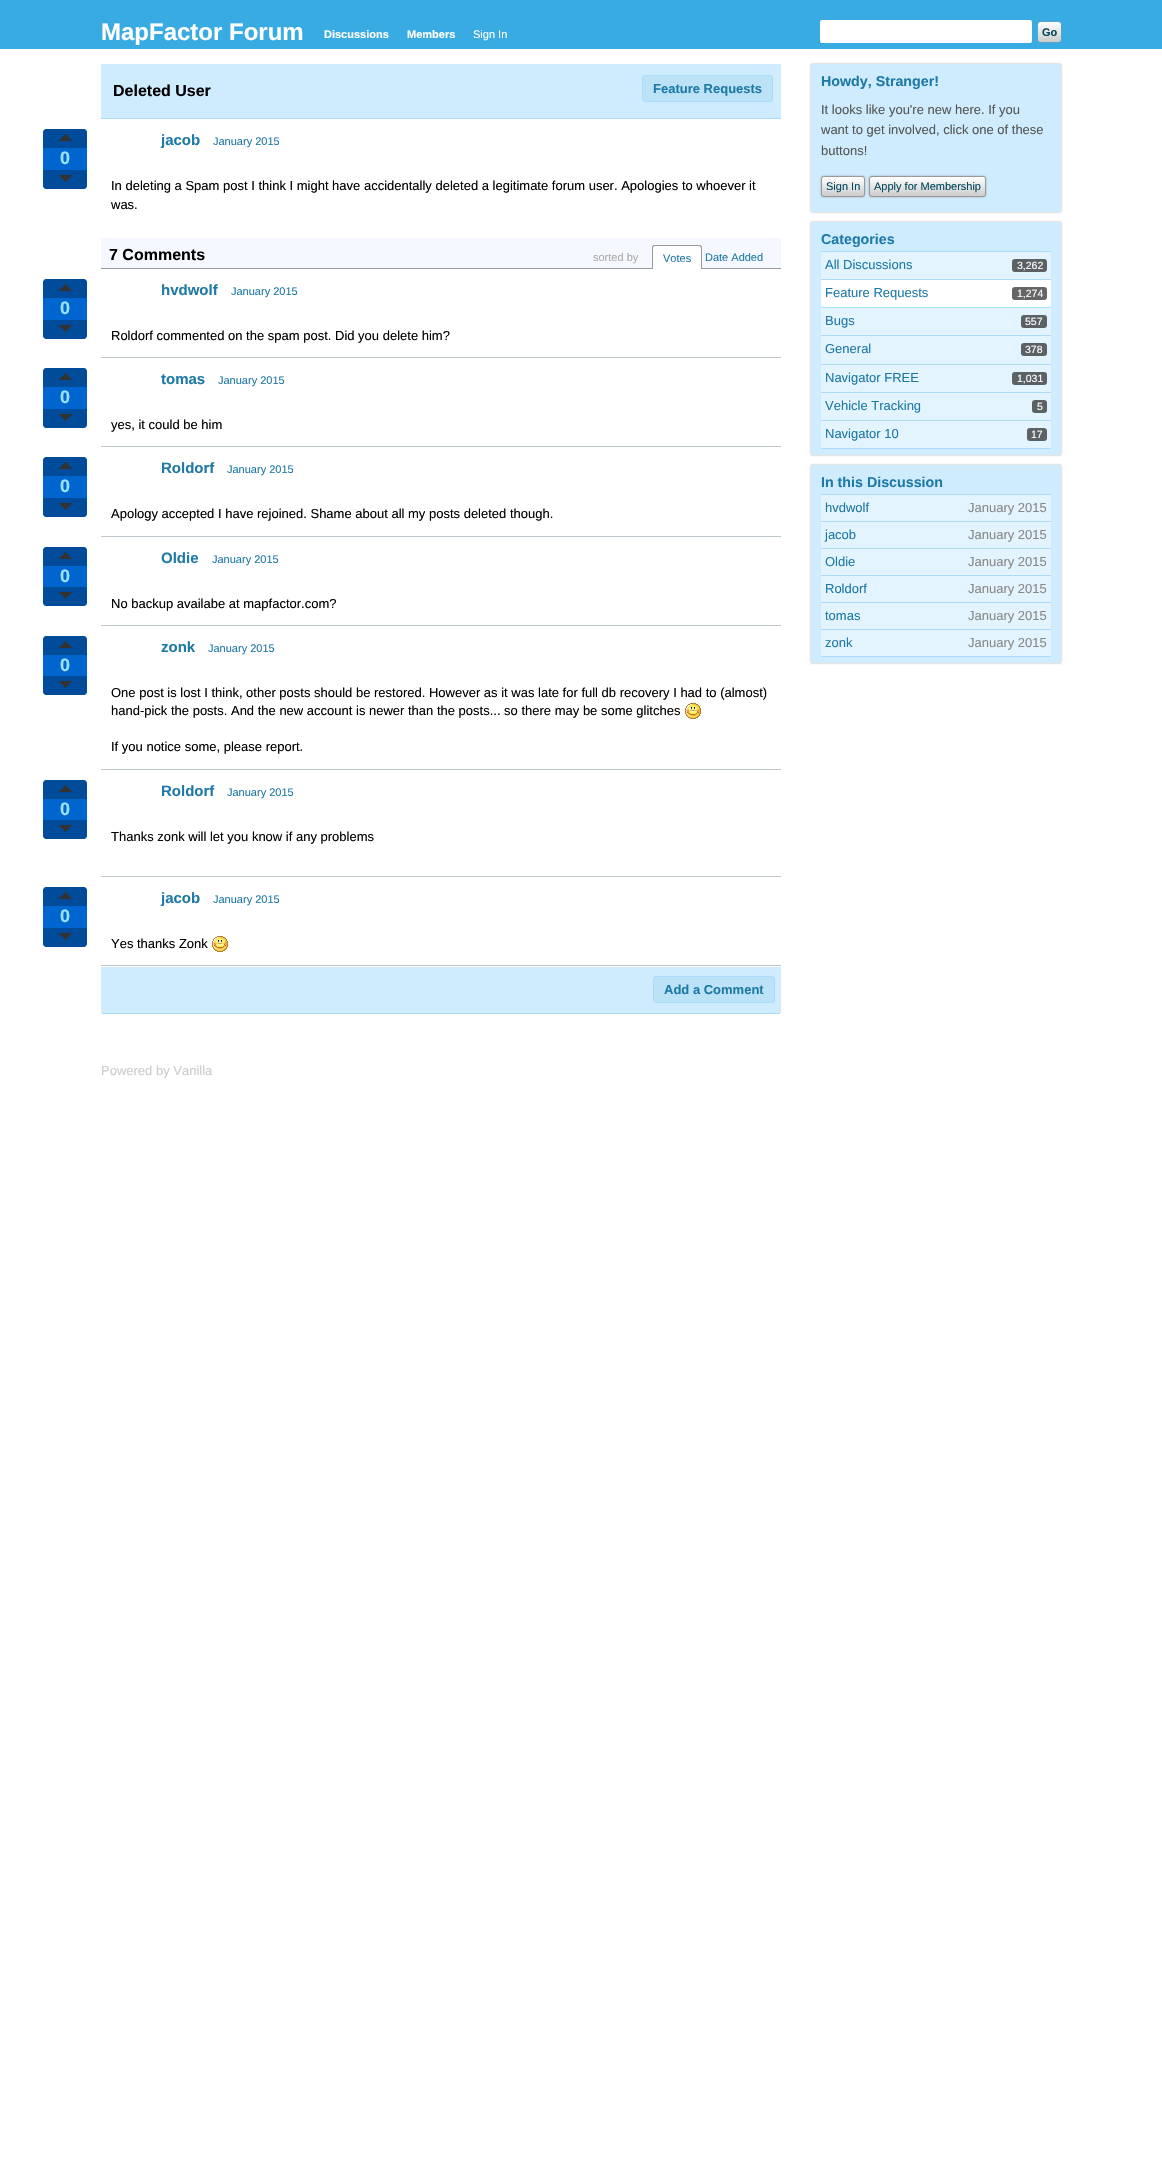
void draw(SkCanvas* canvas) {
	SkPaint fill;
	fill.setAntiAlias(true);
	auto makeFont = [&](const char* family, int weight, float size, bool italic = false) {
		SkFontStyle style(weight, SkFontStyle::kNormal_Width,
			italic ? SkFontStyle::kItalic_Slant : SkFontStyle::kUpright_Slant);
		SkFont result(fontMgr->matchFamilyStyle(family, style), size);
		result.setSubpixel(true);
		return result;
	};
	auto text = [&](const char* s, float x, float y, const SkFont& font) {
		canvas->drawString(s, x, y, font, fill);
	};
	auto box = [&](float l, float t, float r, float b) {
		canvas->drawRect(SkRect::MakeLTRB(l, t, r, b), fill);
	};
	auto roundBox = [&](float l, float t, float r, float b, float radius) {
		canvas->drawRoundRect(SkRect::MakeLTRB(l, t, r, b), radius, radius, fill);
	};
	auto picture = [&](const char* path, float l, float t, float r, float b) {
		auto image = SkImages::DeferredFromEncodedData(SkData::MakeFromFileName(path));
		canvas->drawImageRect(image, SkRect::MakeLTRB(l, t, r, b), SkSamplingOptions());
	};
	canvas->clear(0xFFFFFFFF);
	fill.setColor(0xFF38ABE3);
	box(0, 0, 1162, 49);
	fill.setColor(0xFFFFFFFF);
	roundBox(820, 20, 1032, 43, 2);
	fill.setColor(0xFF999999);
	fill.setMaskFilter(SkMaskFilter::MakeBlur(kNormal_SkBlurStyle, 1));
	canvas->drawRoundRect(SkRect::MakeLTRB(1038, 22, 1061, 42), 3, 3, fill);
	fill.setMaskFilter(nullptr);
	{
		const SkColor colors[] = {0xFFCCCCCC, 0xFFFFFFFF};
		const float stops[] = {0, 1};
		const SkPoint ends[] = {{1050, 42}, {1050, 22}};
		fill.setShader(SkGradientShader::MakeLinear(ends, colors, stops, 2, SkTileMode::kClamp));
		fill.setAlpha(255);
	}
	roundBox(1038, 22, 1061, 42, 3);
	fill.setShader(nullptr);
	fill.setColor(0xFFCFECFF);
	box(101, 64, 781, 118);
	fill.setColor(0xFFABDAFB);
	box(101, 118, 781, 119);
	fill.setColor(0xFFBBE2F7);
	canvas->drawRoundRect(SkRect::MakeLTRB(642.5f, 75.5f, 772.5f, 101.5f), 2.5f, 2.5f, fill);
	fill.setStyle(SkPaint::kStroke_Style);
	fill.setStrokeWidth(1);
	fill.setColor(0xFFABDAFB);
	canvas->drawRoundRect(SkRect::MakeLTRB(642.5f, 75.5f, 772.5f, 101.5f), 2.5f, 2.5f, fill);
	fill.setStyle(SkPaint::kFill_Style);
	fill.setColor(0xFF004C9B);
	canvas->drawPath(SkPathBuilder().moveTo(46, 129).lineTo(84, 129).cubicTo(85.5f, 129, 87, 130.5f, 87, 132).lineTo(87, 148).lineTo(43, 148).lineTo(43, 132).cubicTo(43, 130.5f, 44.5f, 129, 46, 129).close().detach(), fill);
	picture("image0.png", 59, 134, 72, 141);
	fill.setColor(0xFF0065CE);
	box(43, 148, 87, 170);
	fill.setColor(0xFF004C9B);
	canvas->drawPath(SkPathBuilder().moveTo(43, 170).lineTo(87, 170).lineTo(87, 186).cubicTo(87, 187.5f, 85.5f, 189, 84, 189).lineTo(46, 189).cubicTo(44.5f, 189, 43, 187.5f, 43, 186).close().detach(), fill);
	picture("image1.png", 59, 175, 72, 182);
	fill.setColor(0xFFF5F9FF);
	box(101, 238, 781, 268);
	fill.setColor(0xFF999999);
	box(101, 268, 781, 269);
	fill.setColor(0xFFFFFFFF);
	canvas->drawPath(SkPathBuilder().moveTo(655, 245).lineTo(699, 245).cubicTo(700.5f, 245, 702, 246.5f, 702, 248).lineTo(702, 269).lineTo(652, 269).lineTo(652, 248).cubicTo(652, 246.5f, 653.5f, 245, 655, 245).close().detach(), fill);
	fill.setColor(0xFF999999);
	canvas->drawPath(SkPathBuilder(SkPathFillType::kEvenOdd).moveTo(655, 245).lineTo(699, 245).cubicTo(701, 245, 702, 246, 702, 248).lineTo(702, 269).lineTo(652, 269).lineTo(652, 248).cubicTo(652, 246, 653, 245, 655, 245).close().moveTo(655, 246).lineTo(699, 246).cubicTo(700, 246, 701, 247, 701, 248).lineTo(701, 269).lineTo(653, 269).lineTo(653, 248).cubicTo(653, 247, 654, 246, 655, 246).close().detach(), fill);
	fill.setColor(0xFFBEC8CC);
	box(101, 357, 781, 358);
	fill.setColor(0xFF004C9B);
	canvas->drawPath(SkPathBuilder().moveTo(46, 279).lineTo(84, 279).cubicTo(85.5f, 279, 87, 280.5f, 87, 282).lineTo(87, 298).lineTo(43, 298).lineTo(43, 282).cubicTo(43, 280.5f, 44.5f, 279, 46, 279).close().detach(), fill);
	picture("image0.png", 59, 284, 72, 291);
	fill.setColor(0xFF0065CE);
	box(43, 298, 87, 320);
	fill.setColor(0xFF004C9B);
	canvas->drawPath(SkPathBuilder().moveTo(43, 320).lineTo(87, 320).lineTo(87, 336).cubicTo(87, 337.5f, 85.5f, 339, 84, 339).lineTo(46, 339).cubicTo(44.5f, 339, 43, 337.5f, 43, 336).close().detach(), fill);
	picture("image1.png", 59, 325, 72, 332);
	fill.setColor(0xFFBEC8CC);
	box(101, 446, 781, 447);
	fill.setColor(0xFF004C9B);
	canvas->drawPath(SkPathBuilder().moveTo(46, 368).lineTo(84, 368).cubicTo(85.5f, 368, 87, 369.5f, 87, 371).lineTo(87, 387).lineTo(43, 387).lineTo(43, 371).cubicTo(43, 369.5f, 44.5f, 368, 46, 368).close().detach(), fill);
	picture("image0.png", 59, 373, 72, 380);
	fill.setColor(0xFF0065CE);
	box(43, 387, 87, 409);
	fill.setColor(0xFF004C9B);
	canvas->drawPath(SkPathBuilder().moveTo(43, 409).lineTo(87, 409).lineTo(87, 425).cubicTo(87, 426.5f, 85.5f, 428, 84, 428).lineTo(46, 428).cubicTo(44.5f, 428, 43, 426.5f, 43, 425).close().detach(), fill);
	picture("image1.png", 59, 414, 72, 421);
	fill.setColor(0xFFBEC8CC);
	box(101, 536, 781, 537);
	fill.setColor(0xFF004C9B);
	canvas->drawPath(SkPathBuilder().moveTo(46, 457).lineTo(84, 457).cubicTo(85.5f, 457, 87, 458.5f, 87, 460).lineTo(87, 476).lineTo(43, 476).lineTo(43, 460).cubicTo(43, 458.5f, 44.5f, 457, 46, 457).close().detach(), fill);
	picture("image0.png", 59, 462, 72, 469);
	fill.setColor(0xFF0065CE);
	box(43, 476, 87, 498);
	fill.setColor(0xFF004C9B);
	canvas->drawPath(SkPathBuilder().moveTo(43, 498).lineTo(87, 498).lineTo(87, 514).cubicTo(87, 515.5f, 85.5f, 517, 84, 517).lineTo(46, 517).cubicTo(44.5f, 517, 43, 515.5f, 43, 514).close().detach(), fill);
	picture("image1.png", 59, 503, 72, 510);
	fill.setColor(0xFFBEC8CC);
	box(101, 625, 781, 626);
	fill.setColor(0xFF004C9B);
	canvas->drawPath(SkPathBuilder().moveTo(46, 547).lineTo(84, 547).cubicTo(85.5f, 547, 87, 548.5f, 87, 550).lineTo(87, 566).lineTo(43, 566).lineTo(43, 550).cubicTo(43, 548.5f, 44.5f, 547, 46, 547).close().detach(), fill);
	picture("image0.png", 59, 552, 72, 559);
	fill.setColor(0xFF0065CE);
	box(43, 566, 87, 587);
	fill.setColor(0xFF004C9B);
	canvas->drawPath(SkPathBuilder().moveTo(43, 587).lineTo(87, 587).lineTo(87, 603).cubicTo(87, 604.5f, 85.5f, 606, 84, 606).lineTo(46, 606).cubicTo(44.5f, 606, 43, 604.5f, 43, 603).close().detach(), fill);
	picture("image1.png", 59, 592, 72, 599);
	fill.setColor(0xFFBEC8CC);
	box(101, 769, 781, 770);
	fill.setColor(0xFF004C9B);
	canvas->drawPath(SkPathBuilder().moveTo(46, 636).lineTo(84, 636).cubicTo(85.5f, 636, 87, 637.5f, 87, 639).lineTo(87, 655).lineTo(43, 655).lineTo(43, 639).cubicTo(43, 637.5f, 44.5f, 636, 46, 636).close().detach(), fill);
	picture("image0.png", 59, 641, 72, 648);
	fill.setColor(0xFF0065CE);
	box(43, 655, 87, 676);
	fill.setColor(0xFF004C9B);
	canvas->drawPath(SkPathBuilder().moveTo(43, 676).lineTo(87, 676).lineTo(87, 692).cubicTo(87, 693.5f, 85.5f, 695, 84, 695).lineTo(46, 695).cubicTo(44.5f, 695, 43, 693.5f, 43, 692).close().detach(), fill);
	picture("image1.png", 59, 681, 72, 688);
	picture("image2.png", 685, 703, 701, 719);
	fill.setColor(0xFFBEC8CC);
	box(101, 876, 781, 877);
	fill.setColor(0xFF004C9B);
	canvas->drawPath(SkPathBuilder().moveTo(46, 780).lineTo(84, 780).cubicTo(85.5f, 780, 87, 781.5f, 87, 783).lineTo(87, 799).lineTo(43, 799).lineTo(43, 783).cubicTo(43, 781.5f, 44.5f, 780, 46, 780).close().detach(), fill);
	picture("image0.png", 59, 785, 72, 792);
	fill.setColor(0xFF0065CE);
	box(43, 799, 87, 820);
	fill.setColor(0xFF004C9B);
	canvas->drawPath(SkPathBuilder().moveTo(43, 820).lineTo(87, 820).lineTo(87, 836).cubicTo(87, 837.5f, 85.5f, 839, 84, 839).lineTo(46, 839).cubicTo(44.5f, 839, 43, 837.5f, 43, 836).close().detach(), fill);
	picture("image1.png", 59, 825, 72, 832);
	fill.setColor(0xFFBEC8CC);
	box(101, 965, 781, 966);
	fill.setColor(0xFF004C9B);
	canvas->drawPath(SkPathBuilder().moveTo(46, 887).lineTo(84, 887).cubicTo(85.5f, 887, 87, 888.5f, 87, 890).lineTo(87, 906).lineTo(43, 906).lineTo(43, 890).cubicTo(43, 888.5f, 44.5f, 887, 46, 887).close().detach(), fill);
	picture("image0.png", 59, 892, 72, 899);
	fill.setColor(0xFF0065CE);
	box(43, 906, 87, 928);
	fill.setColor(0xFF004C9B);
	canvas->drawPath(SkPathBuilder().moveTo(43, 928).lineTo(87, 928).lineTo(87, 944).cubicTo(87, 945.5f, 85.5f, 947, 84, 947).lineTo(46, 947).cubicTo(44.5f, 947, 43, 945.5f, 43, 944).close().detach(), fill);
	picture("image1.png", 59, 933, 72, 940);
	picture("image2.png", 212, 936, 228, 952);
	fill.setColor(0xFFCFECFF);
	canvas->drawPath(SkPathBuilder().moveTo(101, 967).lineTo(781, 967).lineTo(781, 1012).cubicTo(781, 1013, 780, 1014, 779, 1014).lineTo(103, 1014).cubicTo(102, 1014, 101, 1013, 101, 1012).close().detach(), fill);
	fill.setColor(0xFFABDAFB);
	box(102, 1013, 780, 1014);
	fill.setColor(0xFFBBE2F7);
	canvas->drawRoundRect(SkRect::MakeLTRB(653.5f, 976.5f, 774.5f, 1002.5f), 2.5f, 2.5f, fill);
	fill.setStyle(SkPaint::kStroke_Style);
	fill.setColor(0xFFABDAFB);
	canvas->drawRoundRect(SkRect::MakeLTRB(653.5f, 976.5f, 774.5f, 1002.5f), 2.5f, 2.5f, fill);
	fill.setStyle(SkPaint::kFill_Style);
	fill.setColor(0xFF999999);
	fill.setMaskFilter(SkMaskFilter::MakeBlur(kNormal_SkBlurStyle, 1));
	canvas->drawRoundRect(SkRect::MakeLTRB(811, 64, 1061, 212), 1, 1, fill);
	fill.setMaskFilter(nullptr);
	fill.setColor(0xFFCFECFF);
	roundBox(811, 64, 1061, 212, 1);
	fill.setColor(0xFF999999);
	fill.setMaskFilter(SkMaskFilter::MakeBlur(kNormal_SkBlurStyle, 1));
	canvas->drawRoundRect(SkRect::MakeLTRB(821, 176, 865, 197), 3, 3, fill);
	fill.setMaskFilter(nullptr);
	canvas->save();
	canvas->clipPath(SkPathBuilder().moveTo(824, 176).lineTo(862, 176).cubicTo(863.5f, 176, 865, 177.5f, 865, 179).lineTo(865, 194).cubicTo(865, 195.5f, 863.5f, 197, 862, 197).lineTo(824, 197).cubicTo(822.5f, 197, 821, 195.5f, 821, 194).lineTo(821, 179).cubicTo(821, 177.5f, 822.5f, 176, 824, 176).close().detach(), true);
	{
		const SkColor colors[] = {0xFFCCCCCC, 0xFFFFFFFF};
		const float stops[] = {0, 1};
		const SkPoint ends[] = {{843, 196}, {843, 177}};
		fill.setShader(SkGradientShader::MakeLinear(ends, colors, stops, 2, SkTileMode::kClamp));
		fill.setAlpha(255);
	}
	box(821, 177, 865, 196);
	canvas->restore();
	fill.setStyle(SkPaint::kStroke_Style);
	fill.setShader(nullptr);
	fill.setColor(0xFF999999);
	canvas->drawRoundRect(SkRect::MakeLTRB(821.5f, 176.5f, 864.5f, 196.5f), 2.5f, 2.5f, fill);
	fill.setStyle(SkPaint::kFill_Style);
	fill.setMaskFilter(SkMaskFilter::MakeBlur(kNormal_SkBlurStyle, 1));
	canvas->drawRoundRect(SkRect::MakeLTRB(869, 176, 986, 197), 3, 3, fill);
	fill.setMaskFilter(nullptr);
	canvas->save();
	canvas->clipPath(SkPathBuilder().moveTo(872, 176).lineTo(983, 176).cubicTo(984.5f, 176, 986, 177.5f, 986, 179).lineTo(986, 194).cubicTo(986, 195.5f, 984.5f, 197, 983, 197).lineTo(872, 197).cubicTo(870.5f, 197, 869, 195.5f, 869, 194).lineTo(869, 179).cubicTo(869, 177.5f, 870.5f, 176, 872, 176).close().detach(), true);
	{
		const SkColor colors[] = {0xFFCCCCCC, 0xFFFFFFFF};
		const float stops[] = {0, 1};
		const SkPoint ends[] = {{928, 196}, {928, 177}};
		fill.setShader(SkGradientShader::MakeLinear(ends, colors, stops, 2, SkTileMode::kClamp));
		fill.setAlpha(255);
	}
	box(869, 177, 986, 196);
	canvas->restore();
	fill.setStyle(SkPaint::kStroke_Style);
	fill.setShader(nullptr);
	fill.setColor(0xFF999999);
	canvas->drawRoundRect(SkRect::MakeLTRB(869.5f, 176.5f, 985.5f, 196.5f), 2.5f, 2.5f, fill);
	fill.setStyle(SkPaint::kFill_Style);
	fill.setMaskFilter(SkMaskFilter::MakeBlur(kNormal_SkBlurStyle, 1));
	canvas->drawRoundRect(SkRect::MakeLTRB(811, 222, 1061, 455), 1, 1, fill);
	fill.setMaskFilter(nullptr);
	fill.setColor(0xFFCFECFF);
	roundBox(811, 222, 1061, 455, 1);
	fill.setColor(0xFFABDAFB);
	box(821, 251, 1051, 252);
	fill.setColor(0xFFE3F4FF);
	box(821, 252, 1051, 279);
	fill.setColor(0xFFABDAFB);
	box(821, 279, 1051, 280);
	fill.setColor(0xFF5B6266);
	roundBox(1012, 259, 1047, 272, 3);
	fill.setColor(0xFFFFFFFF);
	box(821, 280, 1051, 307);
	fill.setColor(0xFFA3E6FF);
	box(821, 307, 1051, 308);
	fill.setColor(0xFF666666);
	roundBox(1012, 287, 1047, 300, 3);
	fill.setColor(0xFFE3F4FF);
	box(821, 308, 1051, 335);
	fill.setColor(0xFFABDAFB);
	box(821, 335, 1051, 336);
	fill.setColor(0xFF5B6266);
	roundBox(1021, 315, 1047, 328, 3);
	fill.setColor(0xFFE3F4FF);
	box(821, 336, 1051, 364);
	fill.setColor(0xFFABDAFB);
	box(821, 364, 1051, 365);
	fill.setColor(0xFF5B6266);
	roundBox(1021, 343, 1047, 356, 3);
	fill.setColor(0xFFE3F4FF);
	box(821, 365, 1051, 392);
	fill.setColor(0xFFABDAFB);
	box(821, 392, 1051, 393);
	fill.setColor(0xFF5B6266);
	roundBox(1012, 372, 1047, 385, 3);
	fill.setColor(0xFFE3F4FF);
	box(821, 393, 1051, 420);
	fill.setColor(0xFFABDAFB);
	box(821, 420, 1051, 421);
	fill.setColor(0xFF5B6266);
	roundBox(1032, 400, 1047, 413, 3);
	fill.setColor(0xFFE3F4FF);
	box(821, 421, 1051, 448);
	fill.setColor(0xFFABDAFB);
	box(821, 448, 1051, 449);
	fill.setColor(0xFF5B6266);
	roundBox(1027, 428, 1047, 441, 3);
	fill.setColor(0xFF999999);
	fill.setMaskFilter(SkMaskFilter::MakeBlur(kNormal_SkBlurStyle, 1));
	canvas->drawRoundRect(SkRect::MakeLTRB(811, 465, 1061, 663), 1, 1, fill);
	fill.setMaskFilter(nullptr);
	fill.setColor(0xFFCFECFF);
	roundBox(811, 465, 1061, 663, 1);
	fill.setColor(0xFFABDAFB);
	box(821, 494, 1051, 495);
	fill.setColor(0xFFE3F4FF);
	box(821, 495, 1051, 521);
	fill.setColor(0xFFABDAFB);
	box(821, 521, 1051, 522);
	fill.setColor(0xFFE3F4FF);
	box(821, 522, 1051, 548);
	fill.setColor(0xFFABDAFB);
	box(821, 548, 1051, 549);
	fill.setColor(0xFFE3F4FF);
	box(821, 549, 1051, 575);
	fill.setColor(0xFFABDAFB);
	box(821, 575, 1051, 576);
	fill.setColor(0xFFE3F4FF);
	box(821, 576, 1051, 602);
	fill.setColor(0xFFABDAFB);
	box(821, 602, 1051, 603);
	fill.setColor(0xFFE3F4FF);
	box(821, 603, 1051, 629);
	fill.setColor(0xFFABDAFB);
	box(821, 629, 1051, 630);
	fill.setColor(0xFFE3F4FF);
	box(821, 630, 1051, 656);
	fill.setColor(0xFFABDAFB);
	box(821, 656, 1051, 657);
	auto font1 = makeFont("Liberation Sans", 700, 24);
	fill.setColor(0xFFFFFFFF);
	text("MapFactor Forum", 101, 40, font1);
	auto font2 = makeFont("Liberation Sans", 700, 11);
	text("Discussions", 324, 38, font2);
	text("Members", 407, 38, font2);
	auto font3 = makeFont("Liberation Sans", 400, 11);
	text("Sign In", 473, 38, font3);
	fill.setColor(0xFF02475A);
	text("Go", 1042, 36, font2);
	auto font4 = makeFont("Liberation Sans", 700, 16);
	fill.setColor(0xFF000000);
	text("Deleted User", 113, 96, font4);
	auto font5 = makeFont("Liberation Sans", 700, 13);
	fill.setColor(0xFF1E79A7);
	text("Feature Requests", 653, 93, font5);
	auto font6 = makeFont("Liberation Sans", 700, 15);
	text("jacob", 161, 145, font6);
	text("January 2015", 213, 145, font3);
	auto font7 = makeFont("Liberation Sans", 700, 18);
	fill.setColor(0xFF99E2FE);
	text("0", 60, 164, font7);
	auto font8 = makeFont("Liberation Sans", 400, 13);
	fill.setColor(0xFF000000);
	text("In deleting a Spam post I think I might have accidentally deleted a legitimate forum user. Apologies to whoever it", 111, 190, font8);
	text("was.", 111, 209, font8);
	text("7 Comments", 109, 260, font4);
	fill.setColor(0xFFAAAAAA);
	text("sorted by", 593, 261, font3);
	fill.setColor(0xFF1E79A7);
	text("Votes", 663, 262, font3);
	text("Date Added", 705, 261, font3);
	text("hvdwolf", 161, 295, font6);
	text("January 2015", 231, 295, font3);
	fill.setColor(0xFF99E2FE);
	text("0", 60, 314, font7);
	fill.setColor(0xFF000000);
	text("Roldorf commented on the spam post. Did you delete him?", 111, 340, font8);
	fill.setColor(0xFF1E79A7);
	text("tomas", 161, 384, font6);
	text("January 2015", 218, 384, font3);
	fill.setColor(0xFF99E2FE);
	text("0", 60, 403, font7);
	fill.setColor(0xFF000000);
	text("yes, it could be him", 111, 429, font8);
	fill.setColor(0xFF1E79A7);
	text("Roldorf", 161, 473, font6);
	text("January 2015", 227, 473, font3);
	fill.setColor(0xFF99E2FE);
	text("0", 60, 492, font7);
	fill.setColor(0xFF000000);
	text("Apology accepted I have rejoined. Shame about all my posts deleted though.", 111, 518, font8);
	fill.setColor(0xFF1E79A7);
	text("Oldie", 161, 563, font6);
	text("January 2015", 212, 563, font3);
	fill.setColor(0xFF99E2FE);
	text("0", 60, 582, font7);
	fill.setColor(0xFF000000);
	text("No backup availabe at mapfactor.com?", 111, 608, font8);
	fill.setColor(0xFF1E79A7);
	text("zonk", 161, 652, font6);
	text("January 2015", 208, 652, font3);
	fill.setColor(0xFF99E2FE);
	text("0", 60, 671, font7);
	fill.setColor(0xFF000000);
	text("One post is lost I think, other posts should be restored. However as it was late for full db recovery I had to (almost)", 111, 697, font8);
	text("hand-pick the posts. And the new account is newer than the posts... so there may be some glitches", 111, 715, font8);
	text("If you notice some, please report.", 111, 751, font8);
	fill.setColor(0xFF1E79A7);
	text("Roldorf", 161, 796, font6);
	text("January 2015", 227, 796, font3);
	fill.setColor(0xFF99E2FE);
	text("0", 60, 815, font7);
	fill.setColor(0xFF000000);
	text("Thanks zonk will let you know if any problems", 111, 841, font8);
	fill.setColor(0xFF1E79A7);
	text("jacob", 161, 903, font6);
	text("January 2015", 213, 903, font3);
	fill.setColor(0xFF99E2FE);
	text("0", 60, 922, font7);
	fill.setColor(0xFF000000);
	text("Yes thanks Zonk", 111, 948, font8);
	fill.setColor(0xFF1E79A7);
	text("Add a Comment", 664, 994, font5);
	auto font9 = makeFont("Liberation Sans", 700, 14.25f);
	text("Howdy, Stranger!", 821, 86, font9);
	fill.setColor(0xFF555555);
	text("It looks like you're new here. If you", 821, 114, font8);
	text("want to get involved, click one of these", 821, 134, font8);
	text("buttons!", 821, 155, font8);
	fill.setColor(0xFF02475A);
	text("Sign In", 826, 190, font3);
	text("Apply for Membership", 874, 190, font3);
	fill.setColor(0xFF1E79A7);
	text("Categories", 821, 244, font9);
	text("All Discussions", 825, 269, font8);
	auto font10 = makeFont("Liberation Sans", 400, 10.5f);
	fill.setColor(0xFFFFFFFF);
	text("3,262", 1017, 269, font10);
	fill.setColor(0xFF1E79A7);
	text("Feature Requests", 825, 297, font8);
	fill.setColor(0xFFFFFFFF);
	text("1,274", 1017, 297, font10);
	fill.setColor(0xFF1E79A7);
	text("Bugs", 825, 325, font8);
	fill.setColor(0xFFFFFFFF);
	text("557", 1025, 325, font10);
	fill.setColor(0xFF1E79A7);
	text("General", 825, 353, font8);
	fill.setColor(0xFFFFFFFF);
	text("378", 1025, 353, font10);
	fill.setColor(0xFF1E79A7);
	text("Navigator FREE", 825, 382, font8);
	fill.setColor(0xFFFFFFFF);
	text("1,031", 1017, 382, font10);
	fill.setColor(0xFF1E79A7);
	text("Vehicle Tracking", 825, 410, font8);
	fill.setColor(0xFFFFFFFF);
	text("5", 1037, 410, font10);
	fill.setColor(0xFF1E79A7);
	text("Navigator 10", 825, 438, font8);
	fill.setColor(0xFFFFFFFF);
	text("17", 1031, 438, font10);
	fill.setColor(0xFF1E79A7);
	text("In this Discussion", 821, 487, font9);
	text("hvdwolf", 825, 512, font8);
	fill.setColor(0xFF888888);
	text("January 2015", 968, 512, font8);
	fill.setColor(0xFF1E79A7);
	text("jacob", 825, 539, font8);
	fill.setColor(0xFF888888);
	text("January 2015", 968, 539, font8);
	fill.setColor(0xFF1E79A7);
	text("Oldie", 825, 566, font8);
	fill.setColor(0xFF888888);
	text("January 2015", 968, 566, font8);
	fill.setColor(0xFF1E79A7);
	text("Roldorf", 825, 593, font8);
	fill.setColor(0xFF888888);
	text("January 2015", 968, 593, font8);
	fill.setColor(0xFF1E79A7);
	text("tomas", 825, 620, font8);
	fill.setColor(0xFF888888);
	text("January 2015", 968, 620, font8);
	fill.setColor(0xFF1E79A7);
	text("zonk", 825, 647, font8);
	fill.setColor(0xFF888888);
	text("January 2015", 968, 647, font8);
	fill.setColor(0xFFCCCCCC);
	text("Powered by Vanilla", 101, 1075, font8);
}
